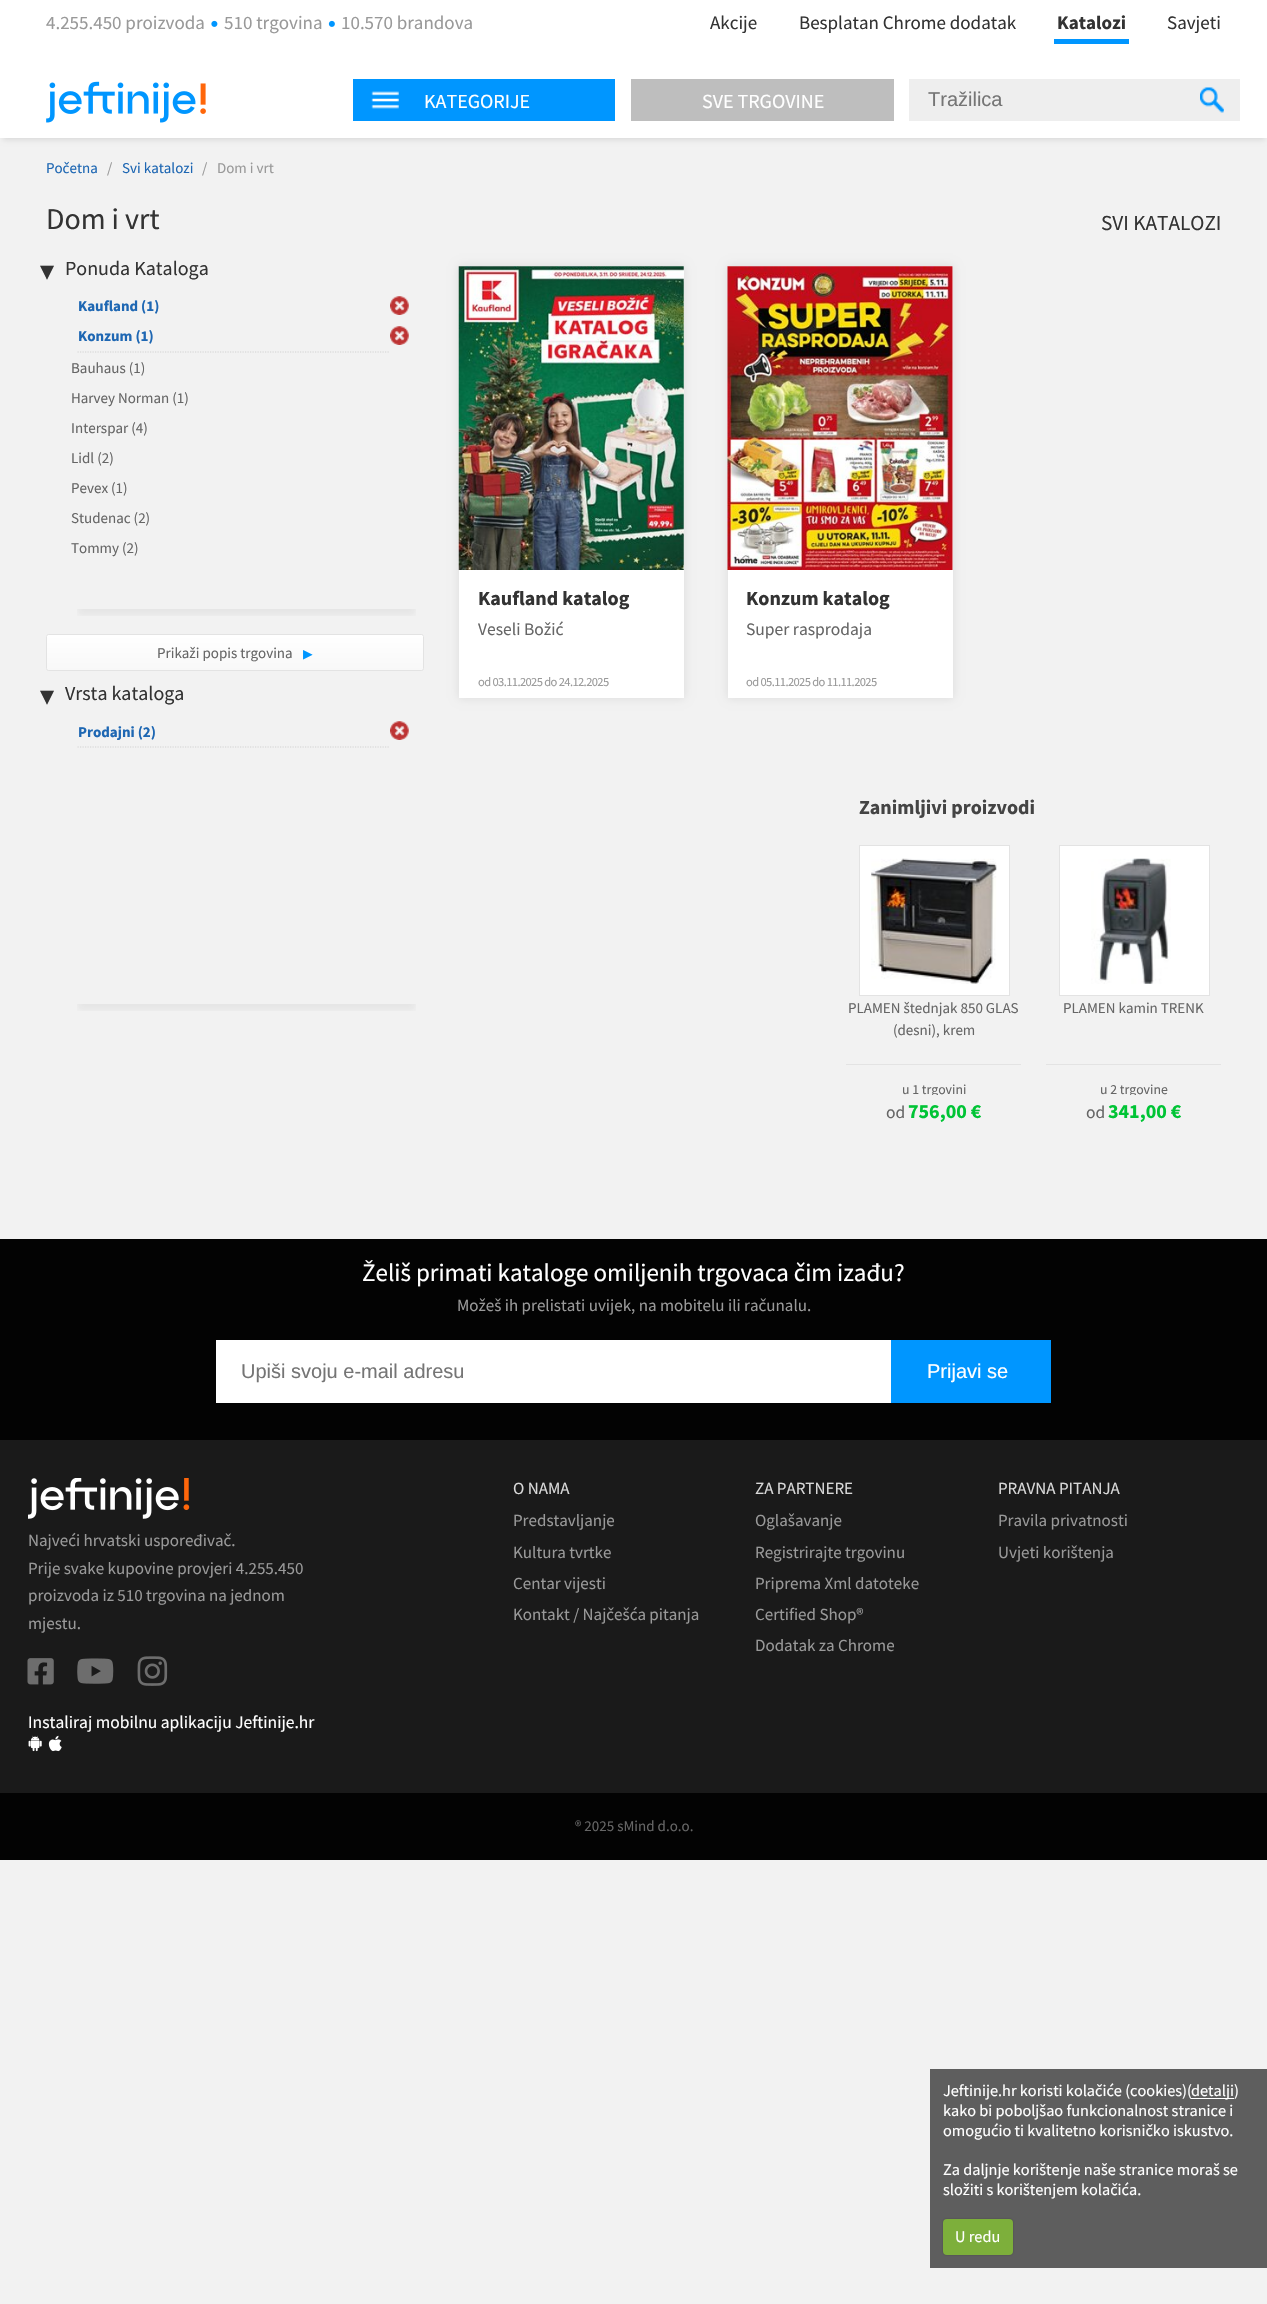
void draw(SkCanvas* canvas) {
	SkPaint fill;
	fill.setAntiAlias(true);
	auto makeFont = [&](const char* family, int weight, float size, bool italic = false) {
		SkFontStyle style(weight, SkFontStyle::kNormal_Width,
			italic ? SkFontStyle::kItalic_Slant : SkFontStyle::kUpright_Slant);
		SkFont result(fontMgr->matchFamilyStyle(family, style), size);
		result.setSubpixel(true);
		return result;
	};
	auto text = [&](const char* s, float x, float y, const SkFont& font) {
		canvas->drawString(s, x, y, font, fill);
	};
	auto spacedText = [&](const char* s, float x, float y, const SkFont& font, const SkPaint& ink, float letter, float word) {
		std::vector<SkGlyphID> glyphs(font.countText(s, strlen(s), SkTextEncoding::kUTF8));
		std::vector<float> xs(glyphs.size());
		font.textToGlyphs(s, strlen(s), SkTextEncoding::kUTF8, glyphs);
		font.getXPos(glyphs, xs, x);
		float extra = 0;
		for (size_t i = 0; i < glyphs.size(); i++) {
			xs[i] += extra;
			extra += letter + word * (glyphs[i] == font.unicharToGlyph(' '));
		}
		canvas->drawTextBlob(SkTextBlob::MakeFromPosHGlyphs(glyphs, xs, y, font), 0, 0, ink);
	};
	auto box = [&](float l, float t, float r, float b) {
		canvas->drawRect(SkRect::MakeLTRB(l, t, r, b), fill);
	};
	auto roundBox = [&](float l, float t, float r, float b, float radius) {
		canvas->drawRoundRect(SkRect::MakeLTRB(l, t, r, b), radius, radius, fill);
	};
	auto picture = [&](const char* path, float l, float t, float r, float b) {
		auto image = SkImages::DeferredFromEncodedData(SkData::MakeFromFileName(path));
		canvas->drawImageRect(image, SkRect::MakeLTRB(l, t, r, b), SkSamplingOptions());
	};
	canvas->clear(0xFFF2F2F2);
	fill.setColor(0xFFFFFFFF);
	box(0, 0, 1267, 63);
	picture("image0.png", 211, 20, 218, 27);
	picture("image1.png", 328, 20, 335, 27);
	fill.setColor(0xFF0096FF);
	box(1054, 39, 1129, 44);
	fill.setColor(0x1A000000);
	fill.setMaskFilter(SkMaskFilter::MakeBlur(kNormal_SkBlurStyle, 2.5f));
	canvas->drawRect(SkRect::MakeLTRB(3, 70, 1265, 140), fill);
	fill.setMaskFilter(nullptr);
	fill.setColor(0xFFFFFFFF);
	box(0, 63, 1267, 138);
	picture("image2.png", 46, 81, 206, 123);
	fill.setColor(0xFF0096FF);
	box(353, 79, 615, 121);
	picture("image3.png", 371, 91, 399, 109);
	fill.setColor(0xFFBEBEBE);
	box(631, 79, 894, 121);
	fill.setColor(0xFFEEEEEE);
	box(909, 79, 1240, 121);
	picture("image4.png", 1200, 87, 1224, 113);
	fill.setStyle(SkPaint::kStroke_Style);
	fill.setStrokeWidth(1.2f);
	fill.setColor(0xFFD2D2D3);
	fill.setPathEffect(SkDashPathEffect::Make({{1.25f, 1.25f}}, 0));
	canvas->drawPath(SkPathBuilder().moveTo(77.5f, 352).lineTo(390, 352).detach(), fill);
	fill.setPathEffect(nullptr);
	picture("image5.png", 390, 296, 409, 315);
	picture("image5.png", 390, 326, 409, 345);
	canvas->save();
	canvas->clipRect(SkRect::MakeLTRB(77, 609, 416, 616));
	fill.setStyle(SkPaint::kFill_Style);
	fill.setColor(0x0D000000);
	fill.setMaskFilter(SkMaskFilter::MakeBlur(kNormal_SkBlurStyle, 3));
	canvas->drawRect(SkRect::MakeLTRB(78, 371, 415, 615), fill);
	fill.setMaskFilter(nullptr);
	canvas->restore();
	canvas->save();
	canvas->clipPath(SkPathBuilder().moveTo(48.5f, 634).lineTo(421.5f, 634).cubicTo(423, 634, 424, 635, 424, 636.5f).lineTo(424, 668.5f).cubicTo(424, 670, 423, 671, 421.5f, 671).lineTo(48.5f, 671).cubicTo(47, 671, 46, 670, 46, 668.5f).lineTo(46, 636.5f).cubicTo(46, 635, 47, 634, 48.5f, 634).close().detach(), true);
	{
		const SkColor colors[] = {0xFFFFFFFF, 0xFFF8F8F8};
		const float stops[] = {0, 1};
		const SkPoint ends[] = {{235, 635}, {235, 670}};
		fill.setShader(SkGradientShader::MakeLinear(ends, colors, stops, 2, SkTileMode::kClamp));
		fill.setAlpha(255);
	}
	box(46, 635, 424, 670);
	canvas->restore();
	fill.setStyle(SkPaint::kStroke_Style);
	fill.setStrokeWidth(1);
	fill.setShader(nullptr);
	fill.setColor(0xFFE3E3E3);
	canvas->drawRoundRect(SkRect::MakeLTRB(46.5f, 634.5f, 423.5f, 670.5f), 2, 2, fill);
	fill.setStrokeWidth(1.2f);
	fill.setColor(0xFFD2D2D3);
	fill.setPathEffect(SkDashPathEffect::Make({{1.25f, 1.25f}}, 0));
	canvas->drawPath(SkPathBuilder().moveTo(77.5f, 747).lineTo(390, 747).detach(), fill);
	fill.setPathEffect(nullptr);
	picture("image5.png", 390, 721, 409, 740);
	canvas->save();
	canvas->clipRect(SkRect::MakeLTRB(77, 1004, 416, 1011));
	fill.setStyle(SkPaint::kFill_Style);
	fill.setColor(0x0D000000);
	fill.setMaskFilter(SkMaskFilter::MakeBlur(kNormal_SkBlurStyle, 3));
	canvas->drawRect(SkRect::MakeLTRB(78, 766, 415, 1010), fill);
	fill.setMaskFilter(nullptr);
	canvas->restore();
	fill.setColor(0x1A000000);
	fill.setMaskFilter(SkMaskFilter::MakeBlur(kNormal_SkBlurStyle, 4.5f));
	canvas->drawRect(SkRect::MakeLTRB(459, 266, 684, 698), fill);
	fill.setMaskFilter(nullptr);
	fill.setColor(0xFFFFFFFF);
	box(459, 266, 684, 698);
	picture("image6.png", 458, 266, 684, 570);
	fill.setColor(0x1A000000);
	fill.setMaskFilter(SkMaskFilter::MakeBlur(kNormal_SkBlurStyle, 4.5f));
	canvas->drawRect(SkRect::MakeLTRB(728, 266, 953, 698), fill);
	fill.setMaskFilter(nullptr);
	fill.setColor(0xFFFFFFFF);
	box(728, 266, 953, 698);
	picture("image7.png", 727, 266, 953, 570);
	canvas->drawRect(SkRect::MakeLTRB(859.5f, 845.5f, 1009.5f, 995.5f), fill);
	fill.setStyle(SkPaint::kStroke_Style);
	fill.setStrokeWidth(1);
	fill.setColor(0xFFE3E3E3);
	canvas->drawRect(SkRect::MakeLTRB(859.5f, 845.5f, 1009.5f, 995.5f), fill);
	picture("image8.png", 871, 858, 997, 984);
	fill.setStyle(SkPaint::kFill_Style);
	box(846, 1064, 1021, 1065);
	fill.setColor(0xFFFFFFFF);
	canvas->drawRect(SkRect::MakeLTRB(1059.5f, 845.5f, 1209.5f, 995.5f), fill);
	fill.setStyle(SkPaint::kStroke_Style);
	fill.setColor(0xFFE3E3E3);
	canvas->drawRect(SkRect::MakeLTRB(1059.5f, 845.5f, 1209.5f, 995.5f), fill);
	picture("image9.png", 1091, 858, 1171, 984);
	fill.setStyle(SkPaint::kFill_Style);
	box(1046, 1064, 1221, 1065);
	fill.setColor(0xFF030303);
	box(0, 1239, 1267, 1440);
	fill.setColor(0xFFFFFFFF);
	box(216, 1340, 891, 1403);
	fill.setColor(0xFF0096FF);
	box(891, 1340, 1051, 1403);
	fill.setColor(0xFF1A1A1A);
	box(0, 1440, 1267, 1793);
	picture("image10.png", 28, 1478, 190, 1519);
	picture("image11.png", 27, 1658, 54, 1685);
	picture("image12.png", 77, 1658, 114, 1684);
	picture("image13.png", 137, 1656, 168, 1686);
	picture("image14.png", 28, 1735, 42, 1752);
	picture("image15.png", 48, 1735, 62, 1752);
	fill.setColor(0xFF030303);
	box(0, 1793, 1267, 1860);
	fill.setColor(0xFF5E5E5E);
	box(930, 2069, 1267, 2268);
	fill.setColor(0xFFFFFFFF);
	box(1191, 2098, 1234, 2099);
	fill.setColor(0x40000000);
	fill.setMaskFilter(SkMaskFilter::MakeBlur(kNormal_SkBlurStyle, 1));
	canvas->drawRoundRect(SkRect::MakeLTRB(943, 2219, 1013, 2255), 4, 4, fill);
	fill.setMaskFilter(nullptr);
	fill.setColor(0xFF7DAF3B);
	roundBox(943, 2219, 1013, 2255, 4);
	auto font1 = makeFont("Source Sans Pro", 400, 19);
	fill.setColor(0xFF999999);
	text("4.255.450 proizvoda", 46, 29, font1);
	text("510 trgovina", 224, 29, font1);
	text("10.570 brandova", 341, 29, font1);
	fill.setColor(0xFF333333);
	text("Akcije", 710, 29, font1);
	text("Besplatan Chrome dodatak", 799, 29, font1);
	auto font2 = makeFont("Source Sans Pro", 700, 19);
	text("Katalozi", 1057, 29, font2);
	text("Savjeti", 1167, 29, font1);
	auto font3 = makeFont("Source Sans Pro", 400, 20);
	fill.setColor(0xFFFFFFFF);
	text("KATEGORIJE", 424, 108, font3);
	text("SVE TRGOVINE", 702, 108, font3);
	auto font4 = makeFont("Liberation Sans", 400, 20);
	fill.setColor(0xFF757575);
	text("Tražilica", 928, 106, font4);
	auto font5 = makeFont("Source Sans Pro", 400, 15);
	fill.setColor(0xFF1E67B3);
	text("Početna", 46, 173, font5);
	fill.setColor(0xFF999999);
	text("/", 107, 173, font5);
	fill.setColor(0xFF1E67B3);
	text("Svi katalozi", 122, 173, font5);
	fill.setColor(0xFF999999);
	text("/", 202, 173, font5);
	text("Dom i vrt", 217, 173, font5);
	auto font6 = makeFont("Source Sans Pro", 400, 30);
	fill.setColor(0xFF333333);
	text("Dom i vrt", 46, 229, font6);
	auto font7 = makeFont("DejaVu Sans", 400, 28);
	text("▾", 40, 280, font7);
	text("Ponuda Kataloga", 65, 275, font3);
	auto font8 = makeFont("Source Sans Pro", 700, 15);
	fill.setColor(0xFF1E67B3);
	text("Kaufland (1)", 78, 311, font8);
	text("Konzum (1)", 78, 341, font8);
	fill.setColor(0xFF666666);
	text("Bauhaus (1)", 71, 373, font5);
	text("Harvey Norman (1)", 71, 403, font5);
	text("Interspar (4)", 71, 433, font5);
	text("Lidl (2)", 71, 463, font5);
	text("Pevex (1)", 71, 493, font5);
	text("Studenac (2)", 71, 523, font5);
	text("Tommy (2)", 71, 553, font5);
	text("Prikaži popis trgovina", 157, 658, font5);
	auto font9 = makeFont("DejaVu Sans", 400, 12.5f);
	fill.setColor(0xFF0096FF);
	text("▶", 303, 658, font9);
	fill.setColor(0xFF333333);
	text("▾", 40, 705, font7);
	text("Vrsta kataloga", 65, 700, font3);
	fill.setColor(0xFF1E67B3);
	text("Prodajni (2)", 78, 737, font8);
	auto font10 = makeFont("Source Sans Pro", 400, 21.25f);
	fill.setColor(0xFF333333);
	text("SVI KATALOZI", 1101, 230, font10);
	auto font11 = makeFont("Source Sans Pro", 700, 20);
	text("Kaufland katalog", 478, 605, font11);
	auto font12 = makeFont("Source Sans Pro", 400, 17.5f);
	fill.setColor(0xFF666666);
	text("Veseli Božić", 478, 635, font12);
	auto font13 = makeFont("Source Sans Pro", 400, 12.5f);
	fill.setColor(0xFF999999);
	spacedText("od 03.11.2025 do 24.12.2025", 478, 686, font13, fill, -0.6f, 0);
	fill.setColor(0xFF333333);
	text("Konzum katalog", 746, 605, font11);
	fill.setColor(0xFF666666);
	text("Super rasprodaja", 746, 635, font12);
	fill.setColor(0xFF999999);
	spacedText("od 05.11.2025 do 11.11.2025", 746, 686, font13, fill, -0.6f, 0);
	fill.setColor(0xFF444444);
	text("Zanimljivi proizvodi", 859, 814, font11);
	fill.setColor(0xFF666666);
	text("PLAMEN štednjak 850 GLAS", 848, 1013, font5);
	text("(desni), krem", 893, 1035, font5);
	canvas->save();
	canvas->clipRect(SkRect::MakeLTRB(846, 1071, 1021, 1095));
	auto font14 = makeFont("Source Sans Pro", 400, 13.75f);
	text("u 1 trgovini", 902, 1094, font14);
	canvas->restore();
	text("od", 886, 1118, font12);
	fill.setColor(0xFF00C435);
	text("756,00 €", 908, 1118, font11);
	fill.setColor(0xFF666666);
	text("PLAMEN kamin TRENK", 1063, 1013, font5);
	canvas->save();
	canvas->clipRect(SkRect::MakeLTRB(1046, 1071, 1221, 1095));
	text("u 2 trgovine", 1100, 1094, font14);
	canvas->restore();
	text("od", 1086, 1118, font12);
	fill.setColor(0xFF00C435);
	text("341,00 €", 1108, 1118, font11);
	auto font15 = makeFont("Source Sans Pro", 400, 25);
	fill.setColor(0xFFFFFFFF);
	text("Želiš primati kataloge omiljenih trgovaca čim izađu?", 362, 1281, font15);
	auto font16 = makeFont("Source Sans Pro", 400, 17);
	fill.setColor(0xFF999999);
	text("Možeš ih prelistati uvijek, na mobitelu ili računalu.", 457, 1311, font16);
	fill.setColor(0xFF757575);
	text("Upiši svoju e-mail adresu", 241, 1378, font4);
	fill.setColor(0xFFFFFFFF);
	text("Prijavi se", 927, 1378, font4);
	fill.setColor(0xFFD8D8D8);
	text("O NAMA", 513, 1494, font16);
	fill.setColor(0xFF999999);
	text("Predstavljanje", 513, 1526, font16);
	text("Kultura tvrtke", 513, 1558, font16);
	text("Centar vijesti", 513, 1589, font16);
	text("Kontakt / Najčešća pitanja", 513, 1620, font16);
	fill.setColor(0xFFD8D8D8);
	text("ZA PARTNERE", 755, 1494, font16);
	fill.setColor(0xFF999999);
	text("Oglašavanje", 755, 1526, font16);
	text("Registrirajte trgovinu", 755, 1558, font16);
	text("Priprema Xml datoteke", 755, 1589, font16);
	text("Certified Shop®", 755, 1620, font16);
	text("Dodatak za Chrome", 755, 1651, font16);
	fill.setColor(0xFFD8D8D8);
	text("PRAVNA PITANJA", 998, 1494, font16);
	fill.setColor(0xFF999999);
	text("Pravila privatnosti", 998, 1526, font16);
	text("Uvjeti korištenja", 998, 1558, font16);
	text("Najveći hrvatski uspoređivač.", 28, 1546, font16);
	text("Prije svake kupovine provjeri 4.255.450", 28, 1574, font16);
	text("proizvoda iz 510 trgovina na jednom", 28, 1601, font16);
	text("mjestu.", 28, 1629, font16);
	fill.setColor(0xFFFFFFFF);
	text("Instaliraj mobilnu aplikaciju Jeftinije.hr", 28, 1728, font12);
	fill.setColor(0xFF666666);
	text("® 2025 sMind d.o.o.", 575, 1831, font5);
	auto font17 = makeFont("Source Sans Pro", 400, 16.25f);
	fill.setColor(0xFFFFFFFF);
	text("Jeftinije.hr koristi kolačiće (cookies)(", 943, 2096, font17);
	text("detalji)", 1191, 2096, font17);
	text("kako bi poboljšao funkcionalnost stranice i", 943, 2116, font17);
	text("omogućio ti kvalitetno korisničko iskustvo.", 943, 2136, font17);
	text("Za daljnje korištenje naše stranice moraš se", 943, 2175, font17);
	text("složiti s korištenjem kolačića.", 943, 2195, font17);
	text("U redu", 955, 2242, font17);
}
